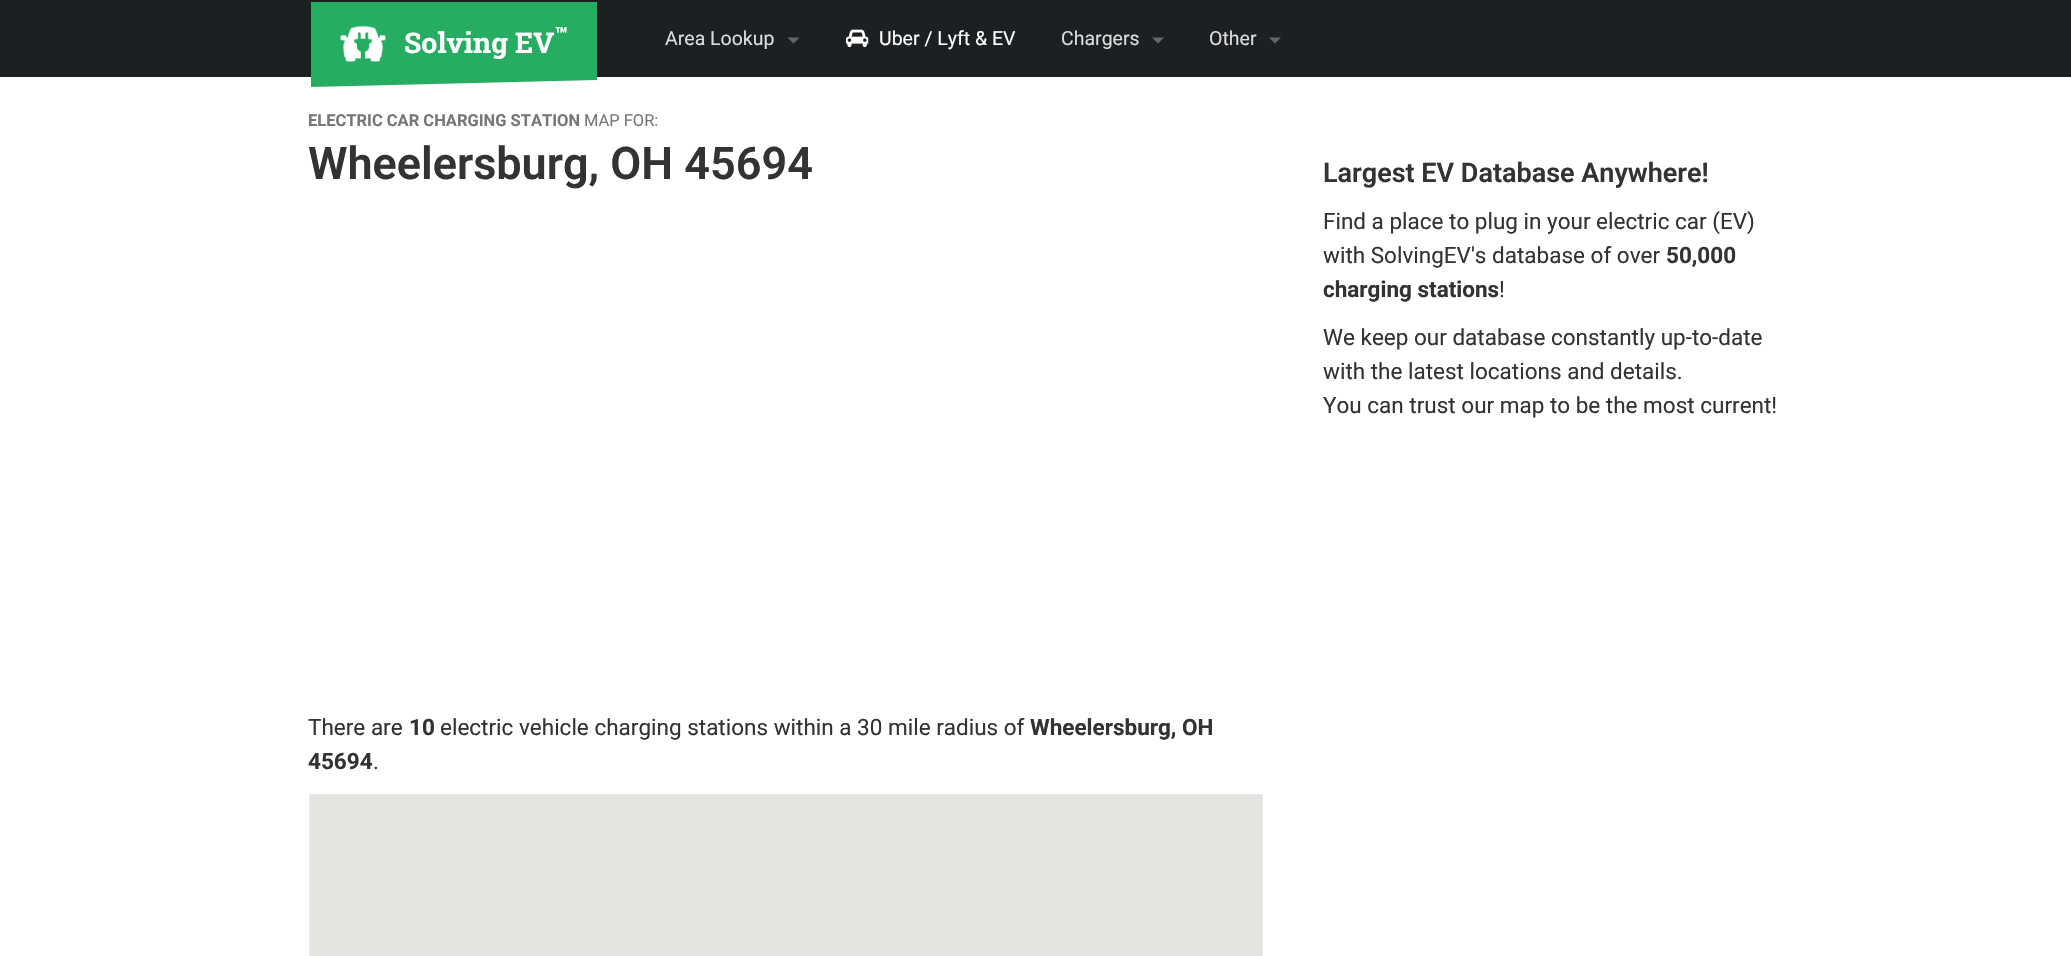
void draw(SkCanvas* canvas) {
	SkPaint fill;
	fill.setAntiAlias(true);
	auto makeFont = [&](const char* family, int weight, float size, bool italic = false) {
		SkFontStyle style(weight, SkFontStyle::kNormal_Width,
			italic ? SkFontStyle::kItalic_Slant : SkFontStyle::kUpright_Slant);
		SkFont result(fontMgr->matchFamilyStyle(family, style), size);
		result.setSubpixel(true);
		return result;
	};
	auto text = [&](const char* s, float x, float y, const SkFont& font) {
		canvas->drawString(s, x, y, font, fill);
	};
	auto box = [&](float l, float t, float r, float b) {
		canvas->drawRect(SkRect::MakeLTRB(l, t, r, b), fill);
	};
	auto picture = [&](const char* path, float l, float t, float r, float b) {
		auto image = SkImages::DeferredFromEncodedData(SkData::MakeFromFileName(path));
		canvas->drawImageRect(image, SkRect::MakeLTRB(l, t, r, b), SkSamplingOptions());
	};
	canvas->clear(0xFFFFFFFF);
	fill.setColor(0xFF1C2022);
	box(0, 0, 2071, 77);
	fill.setColor(0xFF27AD61);
	canvas->drawPath(SkPathBuilder().moveTo(311, 2).lineTo(597, 2).lineTo(597, 80).lineTo(311, 87).close().detach(), fill);
	picture("image0.png", 340, 25, 386, 63);
	fill.setColor(0xFF666666);
	canvas->drawPath(SkPathBuilder().moveTo(787.5f, 37.5f).lineTo(799.5f, 37.5f).lineTo(793.5f, 43.5f).close().detach(), fill);
	picture("image1.png", 846, 29, 869, 48);
	canvas->drawPath(SkPathBuilder().moveTo(1152, 37.5f).lineTo(1164, 37.5f).lineTo(1158, 43.5f).close().detach(), fill);
	canvas->drawPath(SkPathBuilder().moveTo(1269, 37.5f).lineTo(1281, 37.5f).lineTo(1275, 43.5f).close().detach(), fill);
	fill.setStyle(SkPaint::kStroke_Style);
	fill.setStrokeWidth(2);
	fill.setColor(0xFFE9E9E9);
	canvas->drawRect(SkRect::MakeLTRB(310, 795, 1262, 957), fill);
	fill.setStyle(SkPaint::kFill_Style);
	fill.setColor(0xFFE5E3DF);
	box(311, 795, 1262, 956);
	auto font1 = makeFont("Roboto Slab", 700, 21);
	fill.setColor(0xFFFFFFFF);
	text("™", 555, 42, font1);
	auto font2 = makeFont("Roboto Slab", 700, 28.5f);
	text("Solving EV", 404, 53, font2);
	auto font3 = makeFont("Roboto", 400, 19.5f);
	fill.setColor(0xFFDDDDDD);
	text("Area Lookup", 665, 45, font3);
	fill.setColor(0xFFFFFFFF);
	text("Uber / Lyft & EV", 879, 45, font3);
	fill.setColor(0xFFDDDDDD);
	text("Chargers", 1061, 45, font3);
	text("Other", 1209, 45, font3);
	auto font4 = makeFont("Roboto", 700, 16.5f);
	fill.setColor(0xFF777777);
	text("ELECTRIC CAR CHARGING STATION", 308, 126, font4);
	auto font5 = makeFont("Roboto", 400, 16.5f);
	text("MAP FOR:", 584, 126, font5);
	auto font6 = makeFont("Roboto", 600, 45);
	fill.setColor(0xFF333333);
	text("Wheelersburg, OH 45694", 308, 179, font6);
	auto font7 = makeFont("Roboto", 400, 22.5f);
	text("There are", 308, 735, font7);
	auto font8 = makeFont("Roboto", 700, 22.5f);
	text("10", 409, 735, font8);
	text("electric vehicle charging stations within a 30 mile radius of", 440, 735, font7);
	text("Wheelersburg, OH", 1030, 735, font8);
	text("45694", 308, 769, font8);
	text(".", 373, 769, font7);
	auto font9 = makeFont("Roboto", 600, 27);
	text("Largest EV Database Anywhere!", 1323, 182, font9);
	text("Find a place to plug in your electric car (EV)", 1323, 229, font7);
	text("with SolvingEV's database of over", 1323, 263, font7);
	text("50,000", 1666, 263, font8);
	text("charging stations", 1323, 297, font8);
	text("!", 1499, 297, font7);
	text("We keep our database constantly up-to-date", 1323, 345, font7);
	text("with the latest locations and details.", 1323, 379, font7);
	text("You can trust our map to be the most current!", 1323, 413, font7);
}
